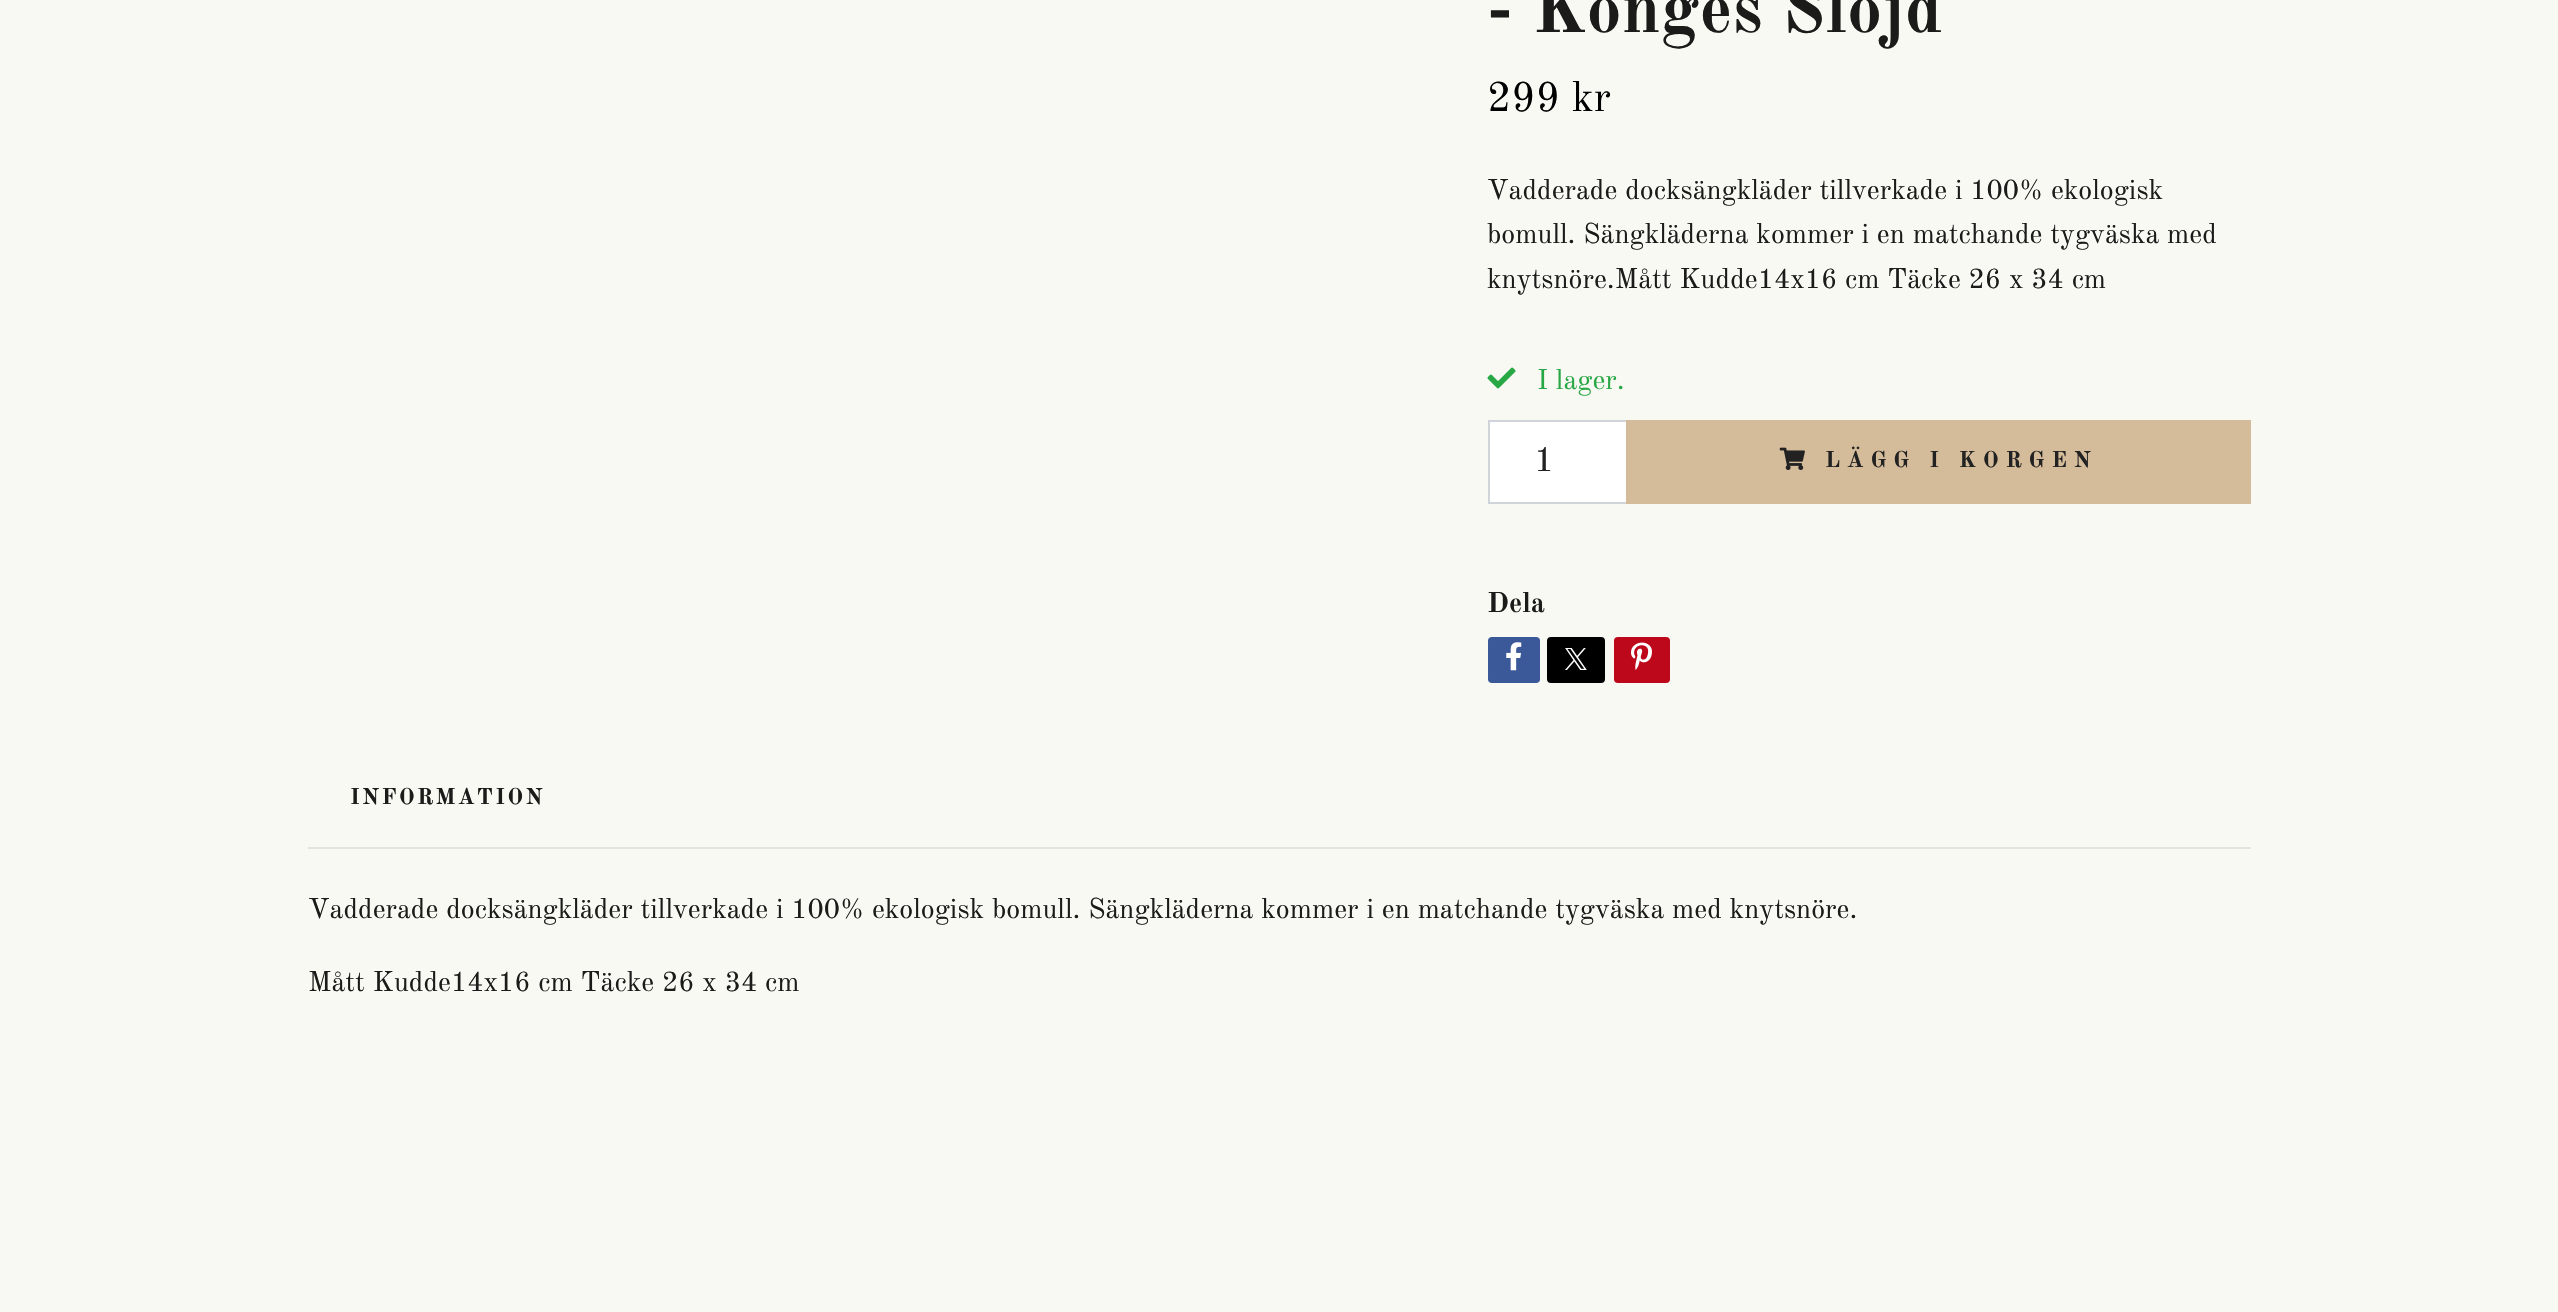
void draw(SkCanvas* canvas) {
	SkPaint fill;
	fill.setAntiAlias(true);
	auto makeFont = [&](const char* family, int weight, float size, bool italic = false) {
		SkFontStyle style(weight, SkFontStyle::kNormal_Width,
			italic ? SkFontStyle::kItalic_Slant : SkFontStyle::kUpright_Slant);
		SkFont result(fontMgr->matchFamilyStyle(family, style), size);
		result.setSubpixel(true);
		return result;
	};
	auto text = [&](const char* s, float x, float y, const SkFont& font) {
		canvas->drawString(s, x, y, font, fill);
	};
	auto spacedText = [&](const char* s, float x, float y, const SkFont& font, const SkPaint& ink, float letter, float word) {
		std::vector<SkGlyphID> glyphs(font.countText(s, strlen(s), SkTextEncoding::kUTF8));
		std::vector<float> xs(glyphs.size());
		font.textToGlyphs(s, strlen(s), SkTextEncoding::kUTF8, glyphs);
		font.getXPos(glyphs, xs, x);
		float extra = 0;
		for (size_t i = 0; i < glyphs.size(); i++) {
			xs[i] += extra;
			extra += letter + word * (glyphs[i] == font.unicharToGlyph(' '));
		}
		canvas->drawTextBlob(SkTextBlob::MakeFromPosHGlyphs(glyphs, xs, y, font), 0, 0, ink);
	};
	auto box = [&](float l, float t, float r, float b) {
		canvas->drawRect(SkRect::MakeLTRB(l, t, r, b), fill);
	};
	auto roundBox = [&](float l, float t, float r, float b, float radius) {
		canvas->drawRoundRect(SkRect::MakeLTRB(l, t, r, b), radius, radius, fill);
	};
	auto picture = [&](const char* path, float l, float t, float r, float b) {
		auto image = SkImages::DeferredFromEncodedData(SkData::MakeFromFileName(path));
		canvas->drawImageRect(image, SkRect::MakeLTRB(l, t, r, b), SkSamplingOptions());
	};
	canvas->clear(0xFFF9F9F4);
	picture("image0.png", 1487, 367, 1516, 389);
	fill.setColor(0xFFFFFFFF);
	canvas->drawRect(SkRect::MakeLTRB(1489, 421, 1627, 503), fill);
	fill.setStyle(SkPaint::kStroke_Style);
	fill.setStrokeWidth(2);
	fill.setColor(0xFFCED4DA);
	canvas->drawRect(SkRect::MakeLTRB(1489, 421, 1627, 503), fill);
	fill.setStyle(SkPaint::kFill_Style);
	fill.setColor(0xFFD4BB99);
	box(1626, 420, 2251, 504);
	picture("image1.png", 1779, 447, 1805, 470);
	fill.setColor(0xFF3B5998);
	roundBox(1488, 637, 1540, 683, 4);
	picture("image2.png", 1506, 642, 1522, 671);
	fill.setColor(0xFF000000);
	roundBox(1547, 637, 1605, 683, 4);
	fill.setColor(0xFFBD081C);
	roundBox(1614, 637, 1670, 683, 4);
	picture("image3.png", 1631, 642, 1652, 670);
	picture("image4.png", 1565, 648, 1587, 670);
	fill.setColor(0xFFE3E3DF);
	box(308, 847, 2251, 849);
	auto font1 = makeFont("Old Standard TT", 700, 70);
	fill.setColor(0xFF1B1C1A);
	text("- Konges Slöjd", 1487, 32, font1);
	auto font2 = makeFont("Old Standard TT", 400, 42);
	fill.setColor(0xFF000000);
	text("299 kr", 1487, 111, font2);
	auto font3 = makeFont("Old Standard TT", 400, 28);
	fill.setColor(0xFF1B1C1A);
	text("Vadderade docksängkläder tillverkade i 100% ekologisk", 1487, 199, font3);
	text("bomull. Sängkläderna kommer i en matchande tygväska med", 1487, 243, font3);
	text("knytsnöre.Mått Kudde14x16 cm Täcke 26 x 34 cm", 1487, 288, font3);
	fill.setColor(0xFF28A745);
	text("I lager.", 1537, 389, font3);
	auto font4 = makeFont("Old Standard TT", 400, 35);
	fill.setColor(0xFF222222);
	text("1", 1534, 471, font4);
	auto font5 = makeFont("Old Standard TT", 700, 22.4f);
	spacedText("LÄGG I KORGEN", 1825, 467, font5, fill, 6.75f, 0);
	auto font6 = makeFont("Old Standard TT", 700, 28);
	fill.setColor(0xFF1B1C1A);
	text("Dela", 1487, 612, font6);
	spacedText("INFORMATION", 350, 804, font5, fill, 2.25f, 0);
	text("Vadderade docksängkläder tillverkade i 100% ekologisk bomull. Sängkläderna kommer i en matchande tygväska med knytsnöre.", 308, 918, font3);
	text("Mått Kudde14x16 cm Täcke 26 x 34 cm", 308, 991, font3);
}
